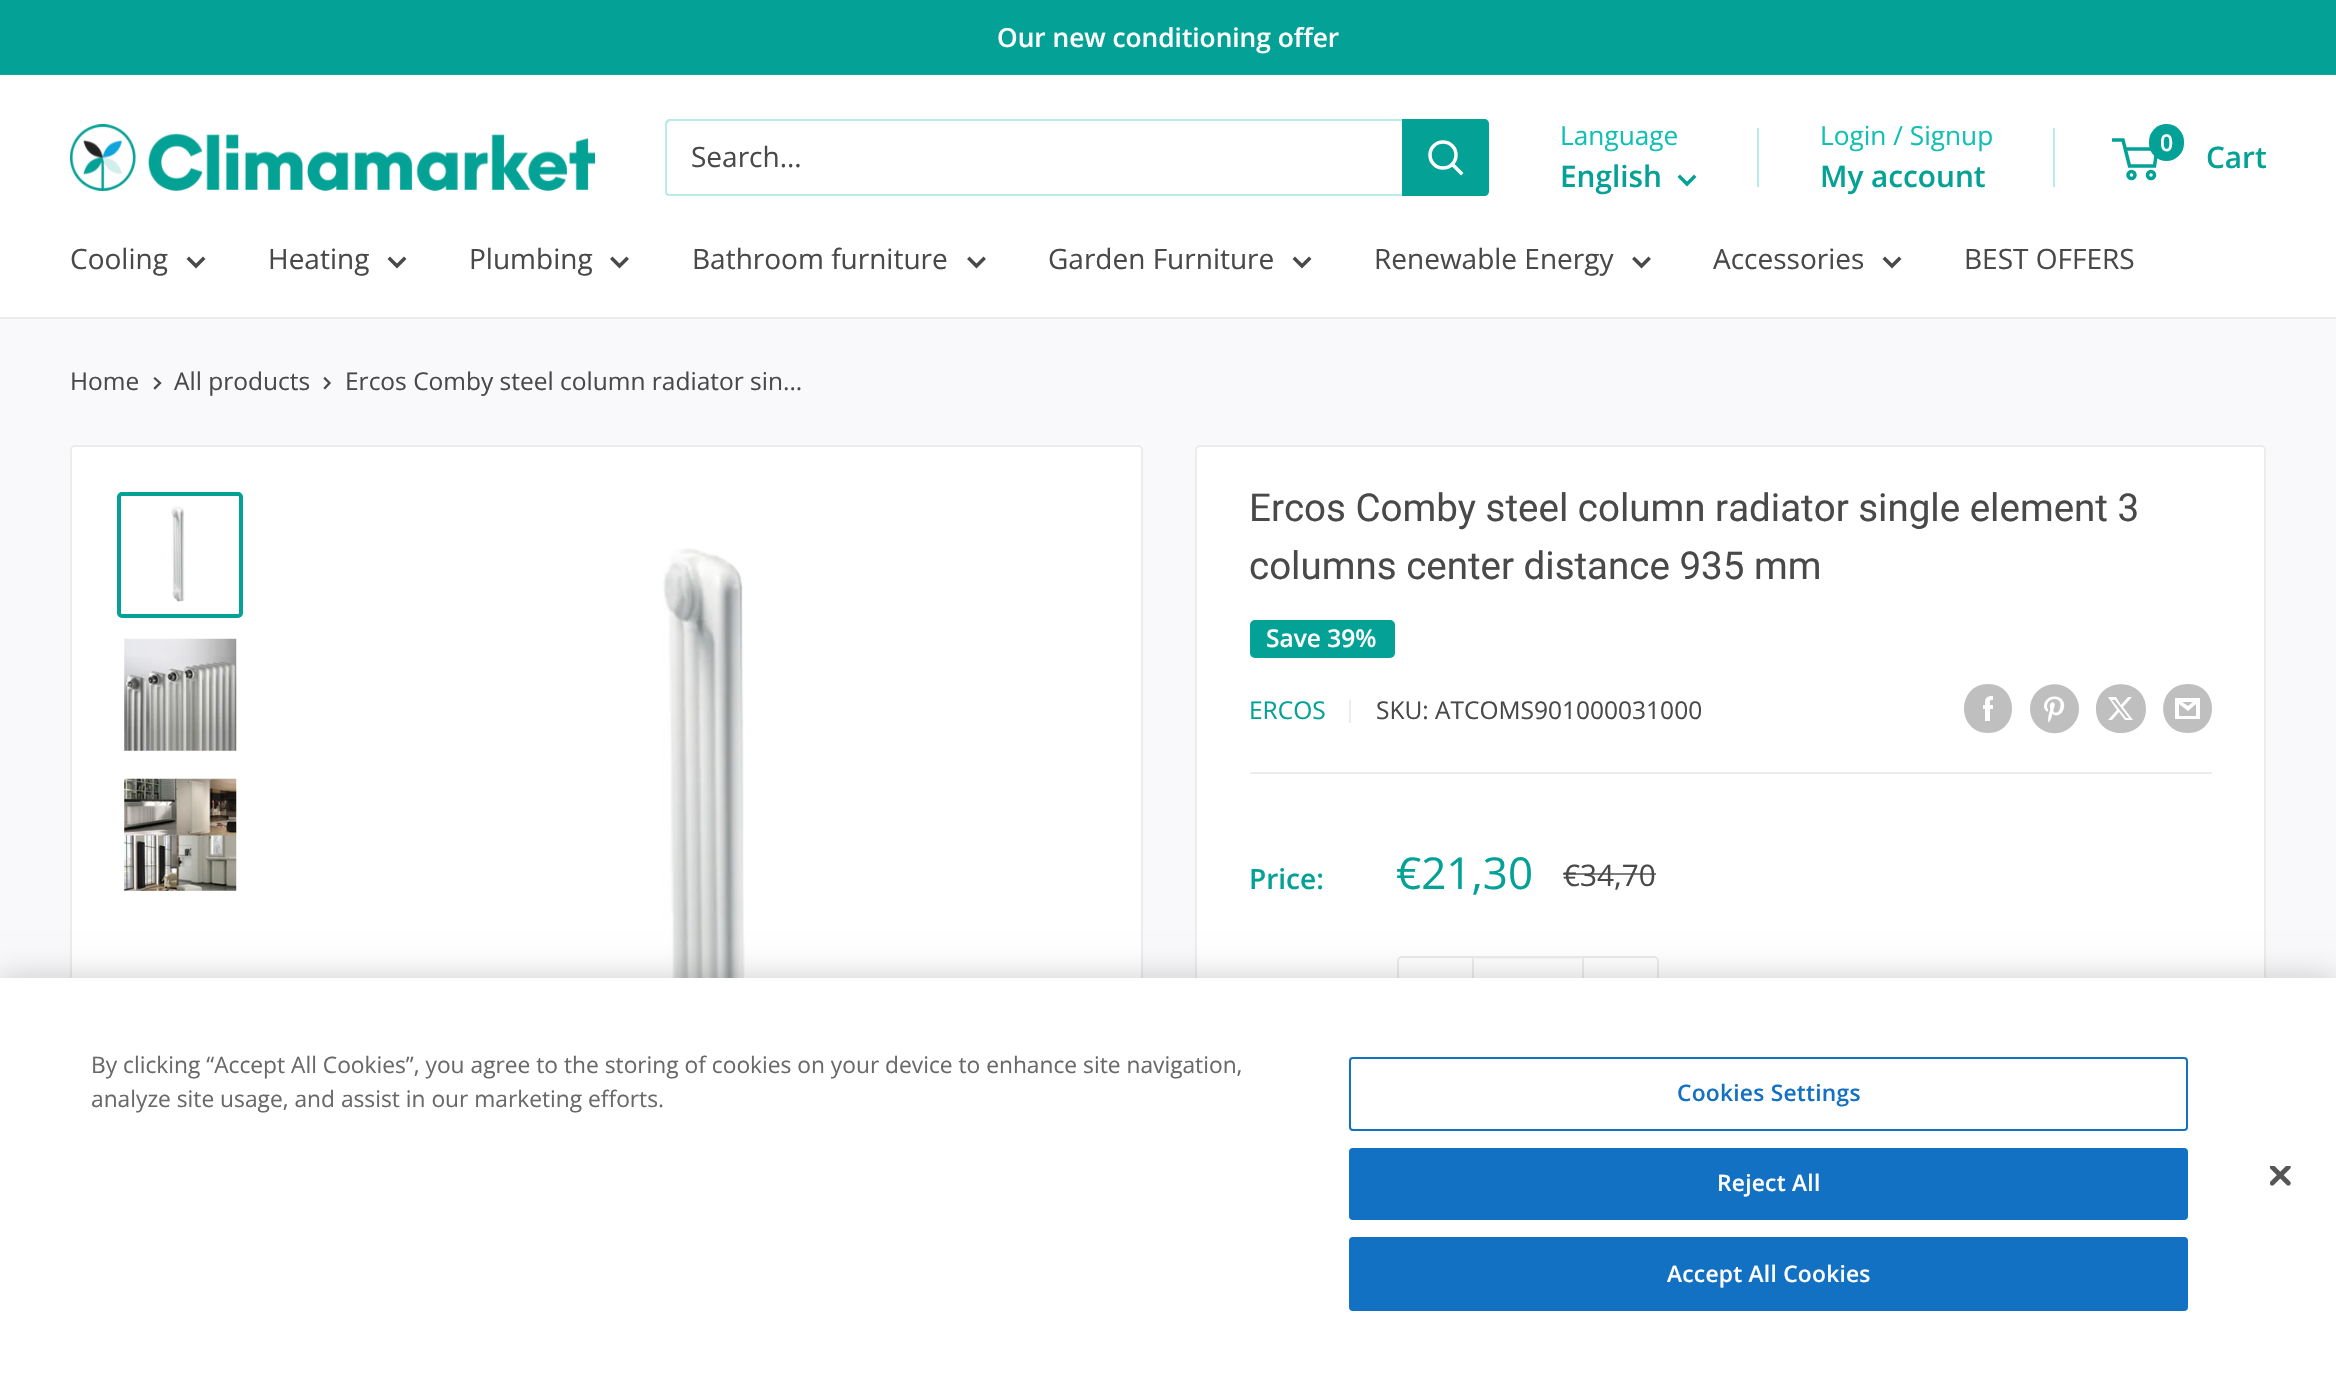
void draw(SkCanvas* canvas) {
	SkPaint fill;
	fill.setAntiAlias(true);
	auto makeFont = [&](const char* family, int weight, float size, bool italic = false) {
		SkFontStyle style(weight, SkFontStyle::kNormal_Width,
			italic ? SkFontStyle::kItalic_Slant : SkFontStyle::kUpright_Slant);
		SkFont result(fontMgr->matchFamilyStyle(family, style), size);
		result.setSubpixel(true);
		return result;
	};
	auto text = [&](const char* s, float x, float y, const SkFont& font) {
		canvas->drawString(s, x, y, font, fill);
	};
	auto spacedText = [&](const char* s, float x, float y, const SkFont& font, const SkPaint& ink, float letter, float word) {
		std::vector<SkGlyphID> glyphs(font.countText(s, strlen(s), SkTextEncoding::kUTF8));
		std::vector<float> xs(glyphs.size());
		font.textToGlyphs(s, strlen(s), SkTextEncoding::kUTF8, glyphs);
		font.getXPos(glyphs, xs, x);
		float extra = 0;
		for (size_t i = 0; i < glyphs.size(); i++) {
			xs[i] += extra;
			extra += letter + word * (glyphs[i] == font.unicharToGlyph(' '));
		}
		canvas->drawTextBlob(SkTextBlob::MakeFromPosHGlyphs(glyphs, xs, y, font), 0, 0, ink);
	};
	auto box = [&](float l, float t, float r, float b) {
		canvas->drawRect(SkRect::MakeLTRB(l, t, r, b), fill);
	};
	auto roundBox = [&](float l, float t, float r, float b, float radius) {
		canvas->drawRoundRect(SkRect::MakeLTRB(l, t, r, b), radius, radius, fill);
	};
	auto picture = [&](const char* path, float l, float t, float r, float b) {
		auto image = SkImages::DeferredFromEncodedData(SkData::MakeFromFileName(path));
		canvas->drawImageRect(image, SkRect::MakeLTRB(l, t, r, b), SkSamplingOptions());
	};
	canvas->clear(0xFFF9F9FB);
	fill.setColor(0xFF03A196);
	box(0, 0, 2336, 74);
	fill.setColor(0xFF07AA9F);
	box(0, 74, 2336, 75);
	fill.setColor(0xFFFFFFFF);
	box(0, 75, 2336, 317);
	picture("image0.png", 70, 124, 595, 191);
	fill.setColor(0xFFB7ECE8);
	canvas->drawPath(SkPathBuilder().moveTo(666, 193).cubicTo(666, 195, 668, 196, 670, 196).lineTo(1484, 196).cubicTo(1487, 196, 1489, 194, 1489, 191).lineTo(1489, 124).cubicTo(1489, 123, 1488, 121, 1488, 120).lineTo(1488, 122).lineTo(1488, 189).cubicTo(1488, 192, 1485, 194, 1482, 194).lineTo(668, 194).close().detach(), fill);
	fill.setColor(0x4D10BFB3);
	canvas->drawPath(SkPathBuilder().moveTo(672, 121).lineTo(1486, 121).lineTo(1488, 121).cubicTo(1487, 120, 1486, 119, 1484, 119).lineTo(670, 119).cubicTo(667, 119, 665, 121, 665, 124).lineTo(665, 191).cubicTo(665, 193, 666, 195, 668, 196).lineTo(667, 192).lineTo(667, 126).cubicTo(667, 123, 669, 121, 672, 121).close().detach(), fill);
	fill.setColor(0xFF03A196);
	canvas->drawPath(SkPathBuilder().moveTo(1402, 119).lineTo(1484, 119).cubicTo(1487, 119, 1489, 121, 1489, 124).lineTo(1489, 191).cubicTo(1489, 194, 1487, 196, 1484, 196).lineTo(1402, 196).close().detach(), fill);
	fill.setStyle(SkPaint::kStroke_Style);
	fill.setStrokeWidth(3.5f);
	fill.setStrokeCap(SkPaint::kSquare_Cap);
	fill.setColor(0xFFFFFFFF);
	canvas->drawPath(SkPathBuilder().moveTo(1461, 173).lineTo(1452.5f, 164.5f).detach(), fill);
	fill.setStrokeCap(SkPaint::kButt_Cap);
	canvas->drawCircle(1443, 155, 13, fill);
	fill.setStrokeCap(SkPaint::kSquare_Cap);
	fill.setColor(0xFF03A196);
	canvas->drawPath(SkPathBuilder().moveTo(1694, 177).lineTo(1687, 184).lineTo(1680, 177).detach(), fill);
	fill.setStyle(SkPaint::kFill_Style);
	fill.setColor(0xFFB7ECE8);
	box(1757, 128, 1759, 187);
	box(2053, 128, 2055, 187);
	fill.setStyle(SkPaint::kStroke_Style);
	fill.setStrokeCap(SkPaint::kButt_Cap);
	fill.setColor(0xFF03A196);
	canvas->drawCircle(2131.5f, 175, 3.5f, fill);
	canvas->drawCircle(2151, 175, 3.5f, fill);
	canvas->drawPath(SkPathBuilder().moveTo(2125, 149).lineTo(2157, 149).lineTo(2154.5f, 166).lineTo(2129.5f, 166).lineTo(2123, 140).lineTo(2112, 140).detach(), fill);
	fill.setStyle(SkPaint::kFill_Style);
	roundBox(2149, 124, 2184, 161, 17.5f);
	fill.setColor(0xFFECECEC);
	box(0, 317, 2336, 319);
	fill.setStyle(SkPaint::kStroke_Style);
	fill.setStrokeCap(SkPaint::kSquare_Cap);
	fill.setColor(0xFF494949);
	canvas->drawPath(SkPathBuilder().moveTo(203, 259).lineTo(196, 266).lineTo(189, 259).detach(), fill);
	canvas->drawPath(SkPathBuilder().moveTo(404, 259).lineTo(397, 266).lineTo(390, 259).detach(), fill);
	canvas->drawPath(SkPathBuilder().moveTo(626.5f, 259).lineTo(619.5f, 266).lineTo(612.5f, 259).detach(), fill);
	canvas->drawPath(SkPathBuilder().moveTo(983.5f, 259).lineTo(976.5f, 266).lineTo(969.5f, 259).detach(), fill);
	canvas->drawPath(SkPathBuilder().moveTo(1309, 259).lineTo(1302, 266).lineTo(1295, 259).detach(), fill);
	canvas->drawPath(SkPathBuilder().moveTo(1648.5f, 259).lineTo(1641.5f, 266).lineTo(1634.5f, 259).detach(), fill);
	canvas->drawPath(SkPathBuilder().moveTo(1899, 259).lineTo(1892, 266).lineTo(1885, 259).detach(), fill);
	fill.setStrokeWidth(2.3f);
	canvas->drawPath(SkPathBuilder().moveTo(155, 378.5f).lineTo(160, 383).lineTo(155, 388).detach(), fill);
	canvas->drawPath(SkPathBuilder().moveTo(325, 378.5f).lineTo(329.5f, 383).lineTo(325, 388).detach(), fill);
	fill.setStyle(SkPaint::kFill_Style);
	fill.setColor(0xFFFFFFFF);
	canvas->drawRoundRect(SkRect::MakeLTRB(71, 446, 1142, 1376), 4, 4, fill);
	fill.setStyle(SkPaint::kStroke_Style);
	fill.setStrokeWidth(2);
	fill.setStrokeCap(SkPaint::kButt_Cap);
	fill.setColor(0xFFECECEC);
	canvas->drawRoundRect(SkRect::MakeLTRB(71, 446, 1142, 1376), 4, 4, fill);
	fill.setStrokeWidth(4);
	fill.setColor(0xFF03A196);
	canvas->drawRoundRect(SkRect::MakeLTRB(119, 494, 241, 616), 3, 3, fill);
	picture("image1.png", 171, 506, 185, 602);
	picture("image2.png", 124, 638, 237, 751);
	picture("image3.png", 124, 778, 237, 891);
	picture("image4.png", 662, 548, 745, 978);
	fill.setStyle(SkPaint::kFill_Style);
	fill.setColor(0xFFFFFFFF);
	canvas->drawRoundRect(SkRect::MakeLTRB(1196, 446, 2265, 1219), 4, 4, fill);
	fill.setStyle(SkPaint::kStroke_Style);
	fill.setStrokeWidth(2);
	fill.setColor(0xFFECECEC);
	canvas->drawRoundRect(SkRect::MakeLTRB(1196, 446, 2265, 1219), 4, 4, fill);
	fill.setStyle(SkPaint::kFill_Style);
	fill.setColor(0xFF03A196);
	roundBox(1250, 620, 1395, 658, 5);
	fill.setColor(0xFFECECEC);
	box(1349, 700, 1351, 723);
	fill.setColor(0xFFBFBFBF);
	canvas->drawPath(SkPathBuilder(SkPathFillType::kEvenOdd).moveTo(1988, 733).cubicTo(1956, 733, 1956, 684, 1988, 684).cubicTo(2020, 684, 2020, 733, 1988, 733).close().moveTo(1993, 705).lineTo(1990, 705).cubicTo(1990, 701, 1989, 700, 1993, 700).lineTo(1993, 696).cubicTo(1986, 696, 1985, 698, 1985, 705).lineTo(1983, 705).lineTo(1983, 709).lineTo(1985, 709).lineTo(1985, 721).lineTo(1990, 721).lineTo(1990, 709).lineTo(1993, 709).close().detach(), fill);
	picture("image5.png", 2030, 684, 2079, 734);
	canvas->drawPath(SkPathBuilder(SkPathFillType::kEvenOdd).moveTo(2146, 709).cubicTo(2146, 741, 2096, 741, 2096, 709).cubicTo(2096, 676, 2146, 676, 2146, 709).close().moveTo(2132, 697).lineTo(2128, 697).lineTo(2121, 705).lineTo(2116, 697).lineTo(2108, 697).lineTo(2117, 710).lineTo(2108, 720).lineTo(2112, 720).lineTo(2119, 712).lineTo(2125, 720).lineTo(2133, 720).lineTo(2123, 707).close().moveTo(2129, 718).lineTo(2126, 718).lineTo(2112, 700).lineTo(2115, 700).close().detach(), fill);
	canvas->drawPath(SkPathBuilder().moveTo(2188, 733).cubicTo(2155, 733, 2155, 684, 2188, 684).cubicTo(2220, 684, 2220, 733, 2188, 733).close().moveTo(2182, 702).lineTo(2193, 702).lineTo(2188, 706).close().moveTo(2196, 704).lineTo(2196, 716).lineTo(2179, 716).lineTo(2179, 704).lineTo(2188, 711).close().moveTo(2200, 698).lineTo(2175, 698).lineTo(2175, 719).lineTo(2200, 719).close().detach(), fill);
	fill.setColor(0xFFECECEC);
	box(1250, 772, 2212, 774);
	fill.setStyle(SkPaint::kStroke_Style);
	canvas->drawRoundRect(SkRect::MakeLTRB(1398, 957, 1658, 1032), 4, 4, fill);
	fill.setStyle(SkPaint::kFill_Style);
	fill.setColor(0x66ECECEC);
	box(1474, 958, 1582, 959);
	fill.setColor(0xFFECECEC);
	box(1582, 957, 1584, 978);
	box(1472, 957, 1474, 978);
	fill.setColor(0x33000000);
	fill.setMaskFilter(SkMaskFilter::MakeBlur(kNormal_SkBlurStyle, 16));
	canvas->drawRect(SkRect::MakeLTRB(0, 978, 2336, 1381), fill);
	fill.setMaskFilter(nullptr);
	fill.setColor(0xFFFFFFFF);
	box(0, 978, 2336, 1380);
	fill.setStyle(SkPaint::kStroke_Style);
	fill.setColor(0xFF1371C3);
	canvas->drawRoundRect(SkRect::MakeLTRB(1350, 1058, 2187, 1130), 3, 3, fill);
	fill.setStyle(SkPaint::kFill_Style);
	canvas->drawRoundRect(SkRect::MakeLTRB(1350, 1149, 2187, 1219), 3, 3, fill);
	fill.setStyle(SkPaint::kStroke_Style);
	canvas->drawRoundRect(SkRect::MakeLTRB(1350, 1149, 2187, 1219), 3, 3, fill);
	fill.setStyle(SkPaint::kFill_Style);
	canvas->drawRoundRect(SkRect::MakeLTRB(1350, 1238, 2187, 1310), 3, 3, fill);
	fill.setStyle(SkPaint::kStroke_Style);
	canvas->drawRoundRect(SkRect::MakeLTRB(1350, 1238, 2187, 1310), 3, 3, fill);
	picture("image6.png", 2270, 1166, 2291, 1186);
	auto font1 = makeFont("Open Sans", 600, 26.25f);
	fill.setStyle(SkPaint::kFill_Style);
	fill.setColor(0xFFFFFFFF);
	text("Our new conditioning offer", 997, 47, font1);
	auto font2 = makeFont("Open Sans", 400, 28);
	fill.setColor(0xFF494949);
	text("Search...", 691, 167, font2);
	auto font3 = makeFont("Open Sans", 400, 26.25f);
	fill.setColor(0xFF10BFB3);
	text("Language", 1560, 145, font3);
	auto font4 = makeFont("Open Sans", 600, 29.75f);
	fill.setColor(0xFF03A196);
	text("English", 1560, 187, font4);
	fill.setColor(0xFF10BFB3);
	text("Login / Signup", 1820, 145, font3);
	fill.setColor(0xFF03A196);
	text("My account", 1820, 187, font4);
	auto font5 = makeFont("Open Sans", 600, 23);
	fill.setColor(0xFFFFFFFF);
	text("0", 2160, 151, font5);
	fill.setColor(0xFF03A196);
	text("Cart", 2206, 168, font4);
	fill.setColor(0xFF494949);
	text("Cooling", 70, 269, font2);
	text("Heating", 268, 269, font2);
	text("Plumbing", 469, 269, font2);
	text("Bathroom furniture", 692, 269, font2);
	text("Garden Furniture", 1048, 269, font2);
	text("Renewable Energy", 1374, 269, font2);
	text("Accessories", 1713, 269, font2);
	text("BEST OFFERS", 1964, 269, font2);
	auto font6 = makeFont("Open Sans", 400, 24.5f);
	text("Home", 70, 390, font6);
	text("All products", 174, 390, font6);
	text("Ercos Comby steel column radiator sin...", 345, 390, font6);
	auto font7 = makeFont("Roboto", 400, 38.5f);
	text("Ercos Comby steel column radiator single element 3", 1249, 521, font7);
	text("columns center distance 935 mm", 1249, 579, font7);
	auto font8 = makeFont("Open Sans", 600, 24.5f);
	fill.setColor(0xFFFFFFFF);
	text("Save 39%", 1266, 647, font8);
	fill.setColor(0xFF03A196);
	text("ERCOS", 1249, 719, font6);
	fill.setColor(0xFF494949);
	text("SKU: ATCOMS901000031000", 1376, 719, font6);
	auto font9 = makeFont("Open Sans", 600, 28);
	fill.setColor(0xFF03A196);
	text("Price:", 1249, 889, font9);
	auto font10 = makeFont("Open Sans", 400, 44);
	text("€21,30", 1396, 889, font10);
	auto font11 = makeFont("Open Sans", 400, 29.75f);
	fill.setColor(0xFF494949);
	text("€34,70", 1563, 886, font11);
	fill.setColor(0xB3494949);
	box(1563, 873, 1656, 875);
	auto font12 = makeFont("Open Sans", 400, 22.75f);
	fill.setColor(0xFF696969);
	text("By clicking “Accept All Cookies”, you agree to the storing of cookies on your device to enhance site navigation,", 91, 1073, font12);
	text("analyze site usage, and assist in our marketing efforts.", 91, 1107, font12);
	auto font13 = makeFont("Open Sans", 600, 22.75f);
	fill.setColor(0xFF1371C3);
	spacedText("Cookies Settings", 1677, 1101, font13, fill, 0.25f, 0);
	fill.setColor(0xFFFFFFFF);
	spacedText("Reject All", 1717, 1191, font13, fill, 0.25f, 0);
	spacedText("Accept All Cookies", 1667, 1282, font13, fill, 0.25f, 0);
}
